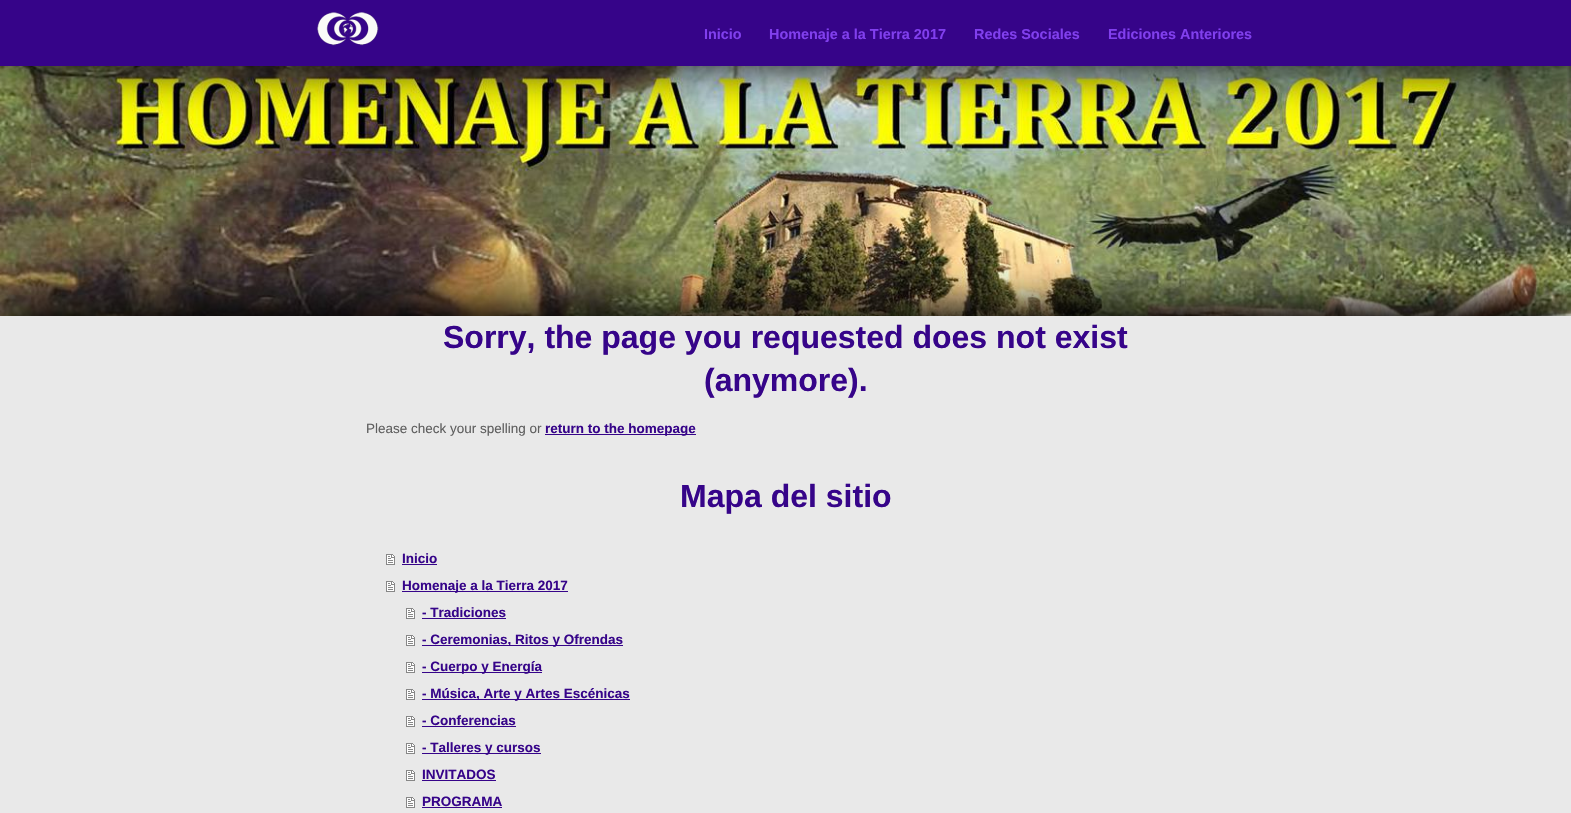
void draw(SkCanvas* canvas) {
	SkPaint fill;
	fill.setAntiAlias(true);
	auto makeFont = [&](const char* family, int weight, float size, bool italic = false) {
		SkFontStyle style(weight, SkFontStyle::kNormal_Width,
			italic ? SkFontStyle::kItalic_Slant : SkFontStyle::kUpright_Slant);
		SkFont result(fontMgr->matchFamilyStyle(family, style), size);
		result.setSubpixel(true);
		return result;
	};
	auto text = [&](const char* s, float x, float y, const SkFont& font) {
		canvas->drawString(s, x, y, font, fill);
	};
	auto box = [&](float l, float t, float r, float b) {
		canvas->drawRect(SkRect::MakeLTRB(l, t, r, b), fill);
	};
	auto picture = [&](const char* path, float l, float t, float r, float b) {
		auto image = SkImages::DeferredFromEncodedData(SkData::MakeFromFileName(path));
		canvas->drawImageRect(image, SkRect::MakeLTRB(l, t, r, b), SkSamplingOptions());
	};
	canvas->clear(0xFFFFFFFF);
	picture("image0.png", 0, 66, 1571, 316);
	fill.setColor(0xFF000000);
	fill.setMaskFilter(SkMaskFilter::MakeBlur(kNormal_SkBlurStyle, 25));
	canvas->drawRect(SkRect::MakeLTRB(4, 0, 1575, 66), fill);
	fill.setMaskFilter(nullptr);
	fill.setColor(0xFF360489);
	box(0, 0, 1571, 66);
	picture("image1.png", 317, 12, 379, 46);
	fill.setColor(0xFF000000);
	fill.setMaskFilter(SkMaskFilter::MakeBlur(kNormal_SkBlurStyle, 20));
	canvas->drawRect(SkRect::MakeLTRB(10, 306, 1561, 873), fill);
	fill.setMaskFilter(nullptr);
	fill.setColor(0xFFE9E9E9);
	box(0, 316, 1571, 813);
	fill.setColor(0xFF360489);
	box(545, 434, 696, 435);
	picture("image2.png", 386, 554, 395, 565);
	box(402, 564, 437, 565);
	picture("image2.png", 386, 581, 395, 592);
	box(402, 591, 568, 592);
	picture("image2.png", 406, 608, 415, 619);
	box(422, 618, 506, 619);
	picture("image2.png", 406, 635, 415, 646);
	box(422, 645, 623, 646);
	picture("image2.png", 406, 662, 415, 673);
	box(422, 672, 542, 673);
	picture("image2.png", 406, 689, 415, 700);
	box(422, 699, 630, 700);
	picture("image2.png", 406, 716, 415, 727);
	box(422, 726, 516, 727);
	picture("image2.png", 406, 743, 415, 754);
	box(422, 753, 541, 754);
	picture("image2.png", 406, 770, 415, 781);
	box(422, 780, 496, 781);
	picture("image2.png", 406, 797, 415, 808);
	box(422, 807, 502, 808);
	auto font1 = makeFont("Liberation Sans", 700, 14.4f);
	fill.setColor(0xFF813FEE);
	text("Inicio", 704, 39, font1);
	text("Homenaje a la Tierra 2017", 769, 39, font1);
	text("Redes Sociales", 974, 39, font1);
	text("Ediciones Anteriores", 1108, 39, font1);
	auto font2 = makeFont("Liberation Sans", 700, 32);
	fill.setColor(0xFF360489);
	text("Sorry, the page you requested does not exist", 443, 348, font2);
	text("(anymore).", 704, 391, font2);
	auto font3 = makeFont("Liberation Sans", 400, 13.5f);
	fill.setColor(0xFF5F5F5F);
	text("Please check your spelling or", 366, 433, font3);
	auto font4 = makeFont("Liberation Sans", 700, 13.5f);
	fill.setColor(0xFF360489);
	text("return to the homepage", 545, 433, font4);
	text("Mapa del sitio", 680, 507, font2);
	text("Inicio", 402, 563, font4);
	text("Homenaje a la Tierra 2017", 402, 590, font4);
	text("- Tradiciones", 422, 617, font4);
	text("- Ceremonias, Ritos y Ofrendas", 422, 644, font4);
	text("- Cuerpo y Energía", 422, 671, font4);
	text("- Música, Arte y Artes Escénicas", 422, 698, font4);
	text("- Conferencias", 422, 725, font4);
	text("- Talleres y cursos", 422, 752, font4);
	text("INVITADOS", 422, 779, font4);
	text("PROGRAMA", 422, 806, font4);
}
